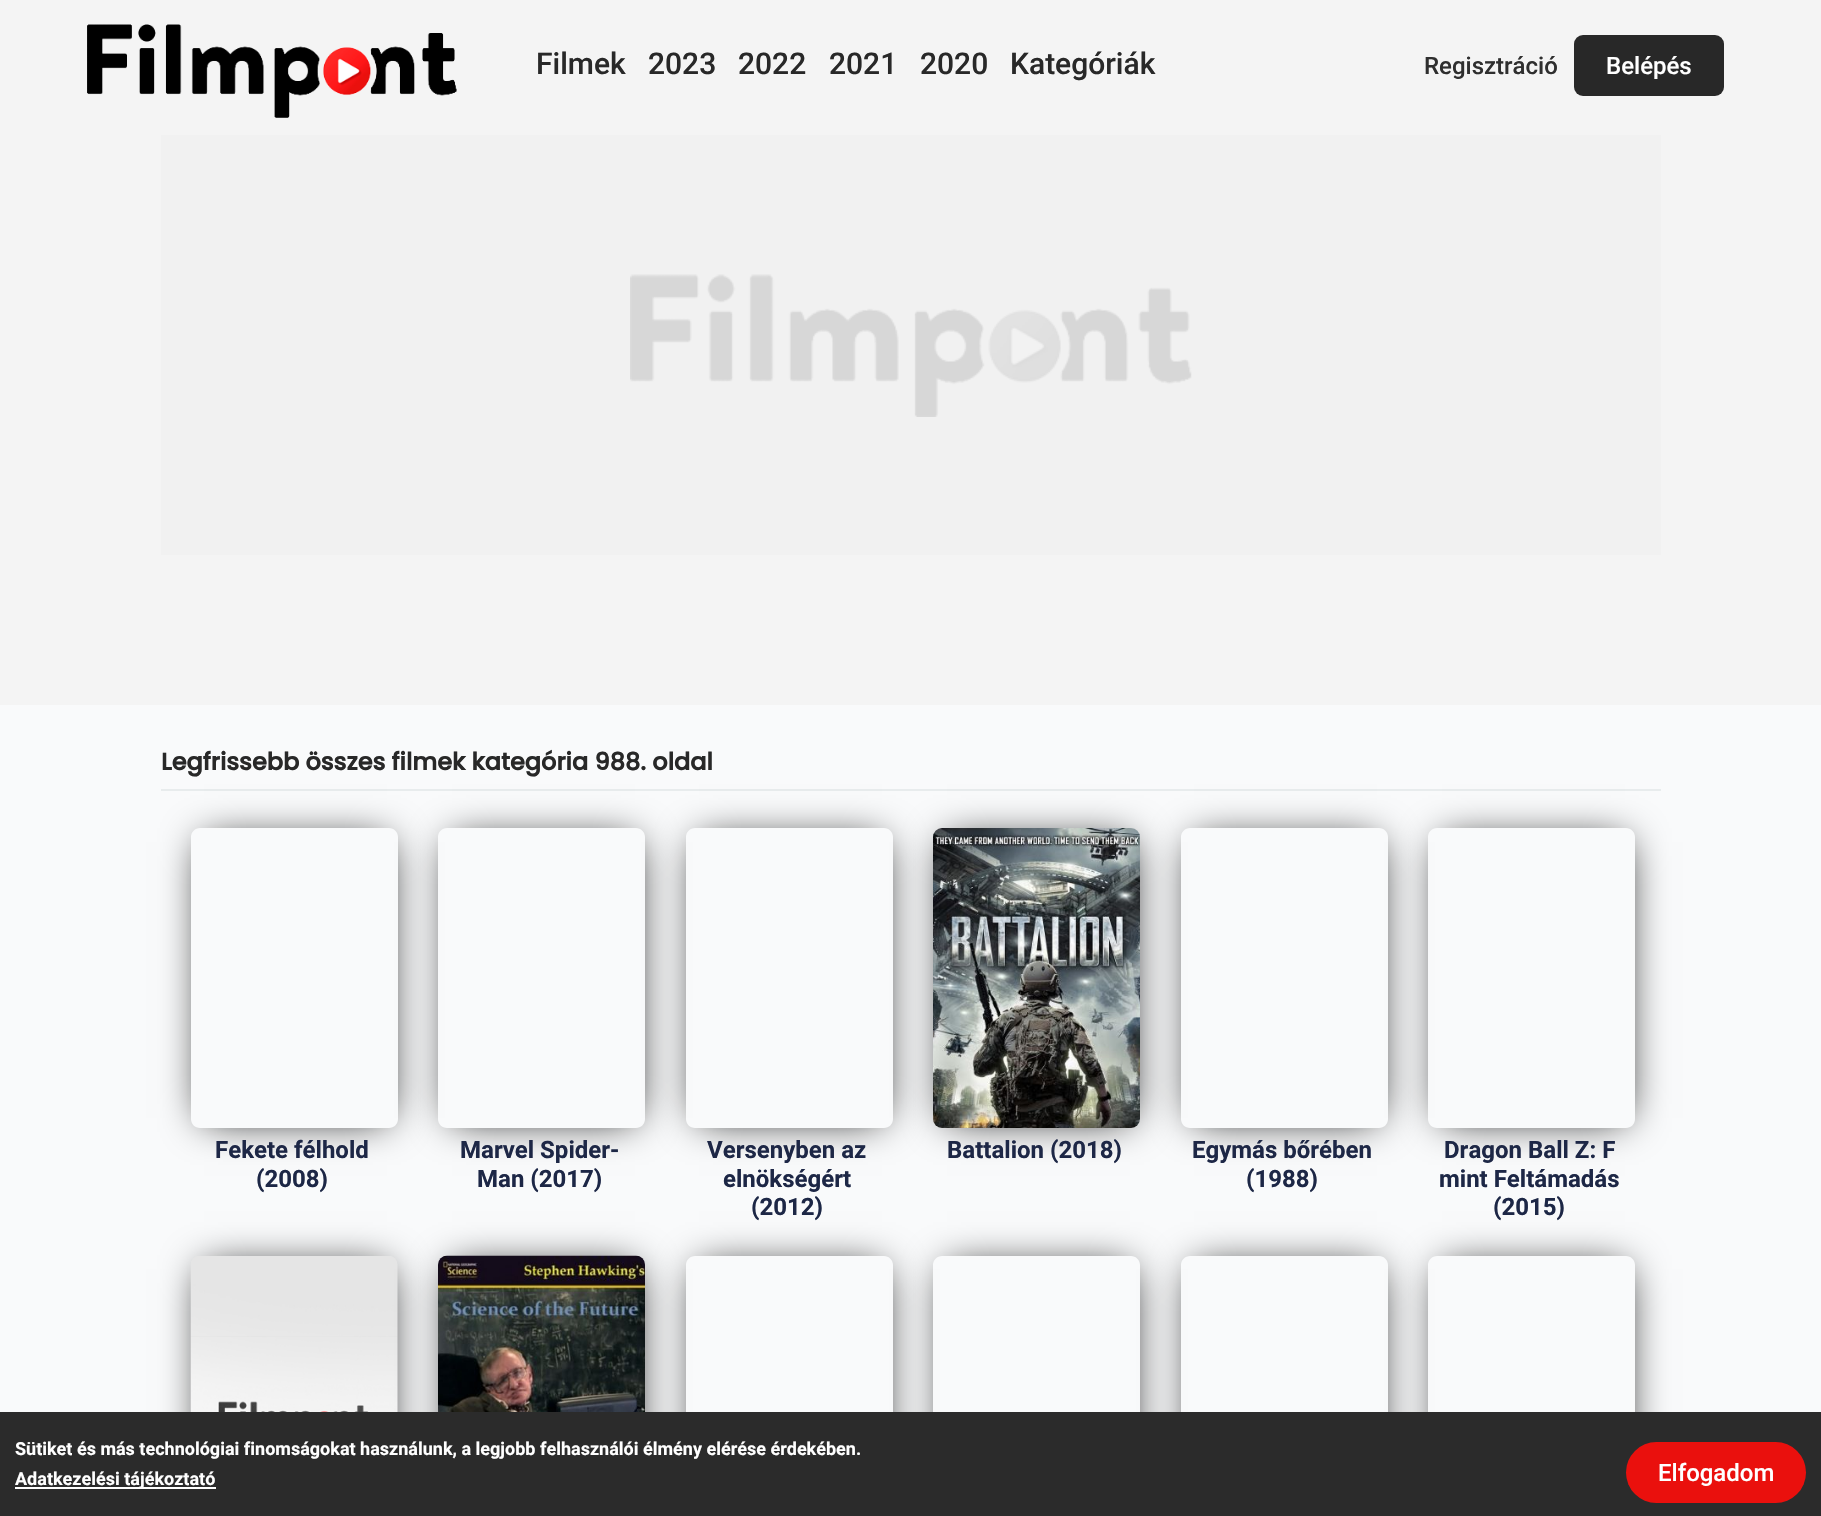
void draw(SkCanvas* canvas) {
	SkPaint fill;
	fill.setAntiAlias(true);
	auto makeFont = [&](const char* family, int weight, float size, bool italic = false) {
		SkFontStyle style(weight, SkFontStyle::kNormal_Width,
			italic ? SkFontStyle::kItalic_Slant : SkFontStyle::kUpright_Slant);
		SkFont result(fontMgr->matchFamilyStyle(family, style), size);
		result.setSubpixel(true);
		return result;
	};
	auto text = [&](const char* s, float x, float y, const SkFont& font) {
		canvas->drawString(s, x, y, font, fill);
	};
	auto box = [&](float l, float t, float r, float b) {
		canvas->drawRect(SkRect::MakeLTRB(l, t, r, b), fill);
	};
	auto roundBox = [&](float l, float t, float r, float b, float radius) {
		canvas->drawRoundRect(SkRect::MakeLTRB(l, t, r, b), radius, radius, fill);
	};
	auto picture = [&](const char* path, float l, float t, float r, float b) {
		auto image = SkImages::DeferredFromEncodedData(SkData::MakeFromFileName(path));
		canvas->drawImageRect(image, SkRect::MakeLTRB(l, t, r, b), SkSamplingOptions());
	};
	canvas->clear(0xFFF4F4F4);
	picture("image0.png", 87, 24, 457, 118);
	fill.setColor(0xFF282828);
	roundBox(1574, 35, 1724, 96, 9);
	fill.setColor(0xFFF1F1F1);
	box(161, 135, 1661, 555);
	picture("image1.png", 630, 274, 1192, 417);
	fill.setColor(0xFFF9FAFB);
	box(0, 705, 1821, 1412);
	fill.setColor(0xFFE8ECED);
	box(161, 789, 1661, 791);
	canvas->save();
	canvas->clipPath(SkPathBuilder(SkPathFillType::kEvenOdd).moveTo(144, 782).lineTo(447, 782).lineTo(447, 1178).lineTo(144, 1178).close().moveTo(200, 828).lineTo(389, 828).cubicTo(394, 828, 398, 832, 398, 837).lineTo(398, 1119).cubicTo(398, 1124, 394, 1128, 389, 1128).lineTo(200, 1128).cubicTo(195, 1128, 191, 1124, 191, 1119).lineTo(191, 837).cubicTo(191, 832, 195, 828, 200, 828).close().detach(), true);
	fill.setColor(0xFF000000);
	fill.setMaskFilter(SkMaskFilter::MakeBlur(kNormal_SkBlurStyle, 19.5f));
	canvas->drawRect(SkRect::MakeLTRB(204, 842, 387, 1118), fill);
	fill.setMaskFilter(nullptr);
	canvas->restore();
	canvas->save();
	canvas->clipPath(SkPathBuilder(SkPathFillType::kEvenOdd).moveTo(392, 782).lineTo(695, 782).lineTo(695, 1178).lineTo(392, 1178).close().moveTo(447, 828).lineTo(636, 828).cubicTo(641, 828, 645, 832, 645, 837).lineTo(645, 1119).cubicTo(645, 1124, 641, 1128, 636, 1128).lineTo(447, 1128).cubicTo(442, 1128, 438, 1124, 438, 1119).lineTo(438, 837).cubicTo(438, 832, 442, 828, 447, 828).close().detach(), true);
	fill.setMaskFilter(SkMaskFilter::MakeBlur(kNormal_SkBlurStyle, 19.5f));
	canvas->drawRect(SkRect::MakeLTRB(452, 842, 635, 1118), fill);
	fill.setMaskFilter(nullptr);
	canvas->restore();
	canvas->save();
	canvas->clipPath(SkPathBuilder(SkPathFillType::kEvenOdd).moveTo(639, 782).lineTo(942, 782).lineTo(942, 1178).lineTo(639, 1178).close().moveTo(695, 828).lineTo(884, 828).cubicTo(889, 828, 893, 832, 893, 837).lineTo(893, 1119).cubicTo(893, 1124, 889, 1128, 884, 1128).lineTo(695, 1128).cubicTo(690, 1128, 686, 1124, 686, 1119).lineTo(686, 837).cubicTo(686, 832, 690, 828, 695, 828).close().detach(), true);
	fill.setMaskFilter(SkMaskFilter::MakeBlur(kNormal_SkBlurStyle, 19.5f));
	canvas->drawRect(SkRect::MakeLTRB(699, 842, 882, 1118), fill);
	fill.setMaskFilter(nullptr);
	canvas->restore();
	fill.setMaskFilter(SkMaskFilter::MakeBlur(kNormal_SkBlurStyle, 19.5f));
	canvas->drawRect(SkRect::MakeLTRB(947, 842, 1130, 1118), fill);
	fill.setMaskFilter(nullptr);
	picture("image2.png", 933, 828, 1140, 1128);
	canvas->save();
	canvas->clipPath(SkPathBuilder(SkPathFillType::kEvenOdd).moveTo(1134, 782).lineTo(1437, 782).lineTo(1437, 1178).lineTo(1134, 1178).close().moveTo(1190, 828).lineTo(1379, 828).cubicTo(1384, 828, 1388, 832, 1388, 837).lineTo(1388, 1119).cubicTo(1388, 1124, 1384, 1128, 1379, 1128).lineTo(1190, 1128).cubicTo(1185, 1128, 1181, 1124, 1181, 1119).lineTo(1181, 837).cubicTo(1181, 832, 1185, 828, 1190, 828).close().detach(), true);
	fill.setMaskFilter(SkMaskFilter::MakeBlur(kNormal_SkBlurStyle, 19.5f));
	canvas->drawRect(SkRect::MakeLTRB(1194, 842, 1377, 1118), fill);
	fill.setMaskFilter(nullptr);
	canvas->restore();
	canvas->save();
	canvas->clipPath(SkPathBuilder(SkPathFillType::kEvenOdd).moveTo(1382, 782).lineTo(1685, 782).lineTo(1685, 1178).lineTo(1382, 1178).close().moveTo(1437, 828).lineTo(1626, 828).cubicTo(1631, 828, 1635, 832, 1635, 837).lineTo(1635, 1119).cubicTo(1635, 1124, 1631, 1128, 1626, 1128).lineTo(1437, 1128).cubicTo(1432, 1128, 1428, 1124, 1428, 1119).lineTo(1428, 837).cubicTo(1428, 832, 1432, 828, 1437, 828).close().detach(), true);
	fill.setMaskFilter(SkMaskFilter::MakeBlur(kNormal_SkBlurStyle, 19.5f));
	canvas->drawRect(SkRect::MakeLTRB(1442, 842, 1625, 1118), fill);
	fill.setMaskFilter(nullptr);
	canvas->restore();
	fill.setMaskFilter(SkMaskFilter::MakeBlur(kNormal_SkBlurStyle, 19.5f));
	canvas->drawRect(SkRect::MakeLTRB(204, 1269, 387, 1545), fill);
	fill.setMaskFilter(nullptr);
	picture("image3.png", 190, 1256, 398, 1412);
	fill.setMaskFilter(SkMaskFilter::MakeBlur(kNormal_SkBlurStyle, 19.5f));
	canvas->drawRect(SkRect::MakeLTRB(452, 1269, 635, 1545), fill);
	fill.setMaskFilter(nullptr);
	picture("image4.png", 438, 1255, 645, 1412);
	canvas->save();
	canvas->clipPath(SkPathBuilder(SkPathFillType::kEvenOdd).moveTo(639, 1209).lineTo(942, 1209).lineTo(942, 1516).lineTo(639, 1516).close().moveTo(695, 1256).lineTo(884, 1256).cubicTo(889, 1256, 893, 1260, 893, 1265).lineTo(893, 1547).cubicTo(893, 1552, 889, 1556, 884, 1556).lineTo(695, 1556).cubicTo(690, 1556, 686, 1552, 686, 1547).lineTo(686, 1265).cubicTo(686, 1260, 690, 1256, 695, 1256).close().detach(), true);
	fill.setMaskFilter(SkMaskFilter::MakeBlur(kNormal_SkBlurStyle, 19.5f));
	canvas->drawRect(SkRect::MakeLTRB(699, 1269, 882, 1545), fill);
	fill.setMaskFilter(nullptr);
	canvas->restore();
	canvas->save();
	canvas->clipPath(SkPathBuilder(SkPathFillType::kEvenOdd).moveTo(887, 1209).lineTo(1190, 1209).lineTo(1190, 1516).lineTo(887, 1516).close().moveTo(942, 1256).lineTo(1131, 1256).cubicTo(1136, 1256, 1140, 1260, 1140, 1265).lineTo(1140, 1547).cubicTo(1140, 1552, 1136, 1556, 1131, 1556).lineTo(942, 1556).cubicTo(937, 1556, 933, 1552, 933, 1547).lineTo(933, 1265).cubicTo(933, 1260, 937, 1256, 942, 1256).close().detach(), true);
	fill.setMaskFilter(SkMaskFilter::MakeBlur(kNormal_SkBlurStyle, 19.5f));
	canvas->drawRect(SkRect::MakeLTRB(947, 1269, 1130, 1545), fill);
	fill.setMaskFilter(nullptr);
	canvas->restore();
	canvas->save();
	canvas->clipPath(SkPathBuilder(SkPathFillType::kEvenOdd).moveTo(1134, 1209).lineTo(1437, 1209).lineTo(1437, 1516).lineTo(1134, 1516).close().moveTo(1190, 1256).lineTo(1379, 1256).cubicTo(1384, 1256, 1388, 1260, 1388, 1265).lineTo(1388, 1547).cubicTo(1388, 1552, 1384, 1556, 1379, 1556).lineTo(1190, 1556).cubicTo(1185, 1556, 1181, 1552, 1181, 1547).lineTo(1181, 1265).cubicTo(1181, 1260, 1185, 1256, 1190, 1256).close().detach(), true);
	fill.setMaskFilter(SkMaskFilter::MakeBlur(kNormal_SkBlurStyle, 19.5f));
	canvas->drawRect(SkRect::MakeLTRB(1194, 1269, 1377, 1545), fill);
	fill.setMaskFilter(nullptr);
	canvas->restore();
	canvas->save();
	canvas->clipPath(SkPathBuilder(SkPathFillType::kEvenOdd).moveTo(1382, 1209).lineTo(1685, 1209).lineTo(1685, 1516).lineTo(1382, 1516).close().moveTo(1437, 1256).lineTo(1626, 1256).cubicTo(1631, 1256, 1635, 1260, 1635, 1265).lineTo(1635, 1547).cubicTo(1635, 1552, 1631, 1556, 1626, 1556).lineTo(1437, 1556).cubicTo(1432, 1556, 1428, 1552, 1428, 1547).lineTo(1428, 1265).cubicTo(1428, 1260, 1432, 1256, 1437, 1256).close().detach(), true);
	fill.setMaskFilter(SkMaskFilter::MakeBlur(kNormal_SkBlurStyle, 19.5f));
	canvas->drawRect(SkRect::MakeLTRB(1442, 1269, 1625, 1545), fill);
	fill.setMaskFilter(nullptr);
	canvas->restore();
	fill.setColor(0xFF2B2B2B);
	box(0, 1412, 1821, 1516);
	fill.setColor(0xFFFFFFFF);
	box(15, 1487, 216, 1489);
	fill.setColor(0xFFEA100D);
	roundBox(1626, 1442, 1806, 1503, 30.5f);
	auto font1 = makeFont("Roboto", 500, 30);
	fill.setColor(0xFF282828);
	text("Filmek", 536, 74, font1);
	text("2023", 648, 74, font1);
	text("2022", 738, 74, font1);
	text("2021", 829, 74, font1);
	text("2020", 920, 74, font1);
	text("Kategóriák", 1010, 74, font1);
	auto font2 = makeFont("Roboto", 500, 24);
	fill.setColor(0xFF2F2F2F);
	text("Regisztráció", 1424, 74, font2);
	fill.setColor(0xFFFFFFFF);
	text("Belépés", 1606, 74, font2);
	auto font3 = makeFont("Poppins", 700, 24);
	fill.setColor(0xFF282828);
	text("Legfrissebb összes filmek kategória 988. oldal", 161, 770, font3);
	auto font4 = makeFont("Roboto", 700, 24);
	fill.setColor(0xFF1D2746);
	text("Fekete félhold", 215, 1158, font4);
	text("(2008)", 256, 1187, font4);
	text("Marvel Spider-", 460, 1158, font4);
	text("Man (2017)", 477, 1187, font4);
	text("Versenyben az", 707, 1158, font4);
	text("elnökségért", 723, 1187, font4);
	text("(2012)", 751, 1215, font4);
	text("Battalion (2018)", 947, 1158, font4);
	text("Egymás bőrében", 1192, 1158, font4);
	text("(1988)", 1246, 1187, font4);
	text("Dragon Ball Z: F", 1444, 1158, font4);
	text("mint Feltámadás", 1439, 1187, font4);
	text("(2015)", 1493, 1215, font4);
	auto font5 = makeFont("Roboto", 700, 18);
	fill.setColor(0xFFFFFFFF);
	text("Sütiket és más technológiai finomságokat használunk, a legjobb felhasználói élmény elérése érdekében.", 15, 1455, font5);
	text("Adatkezelési tájékoztató", 15, 1485, font5);
	text("Elfogadom", 1658, 1481, font2);
}
